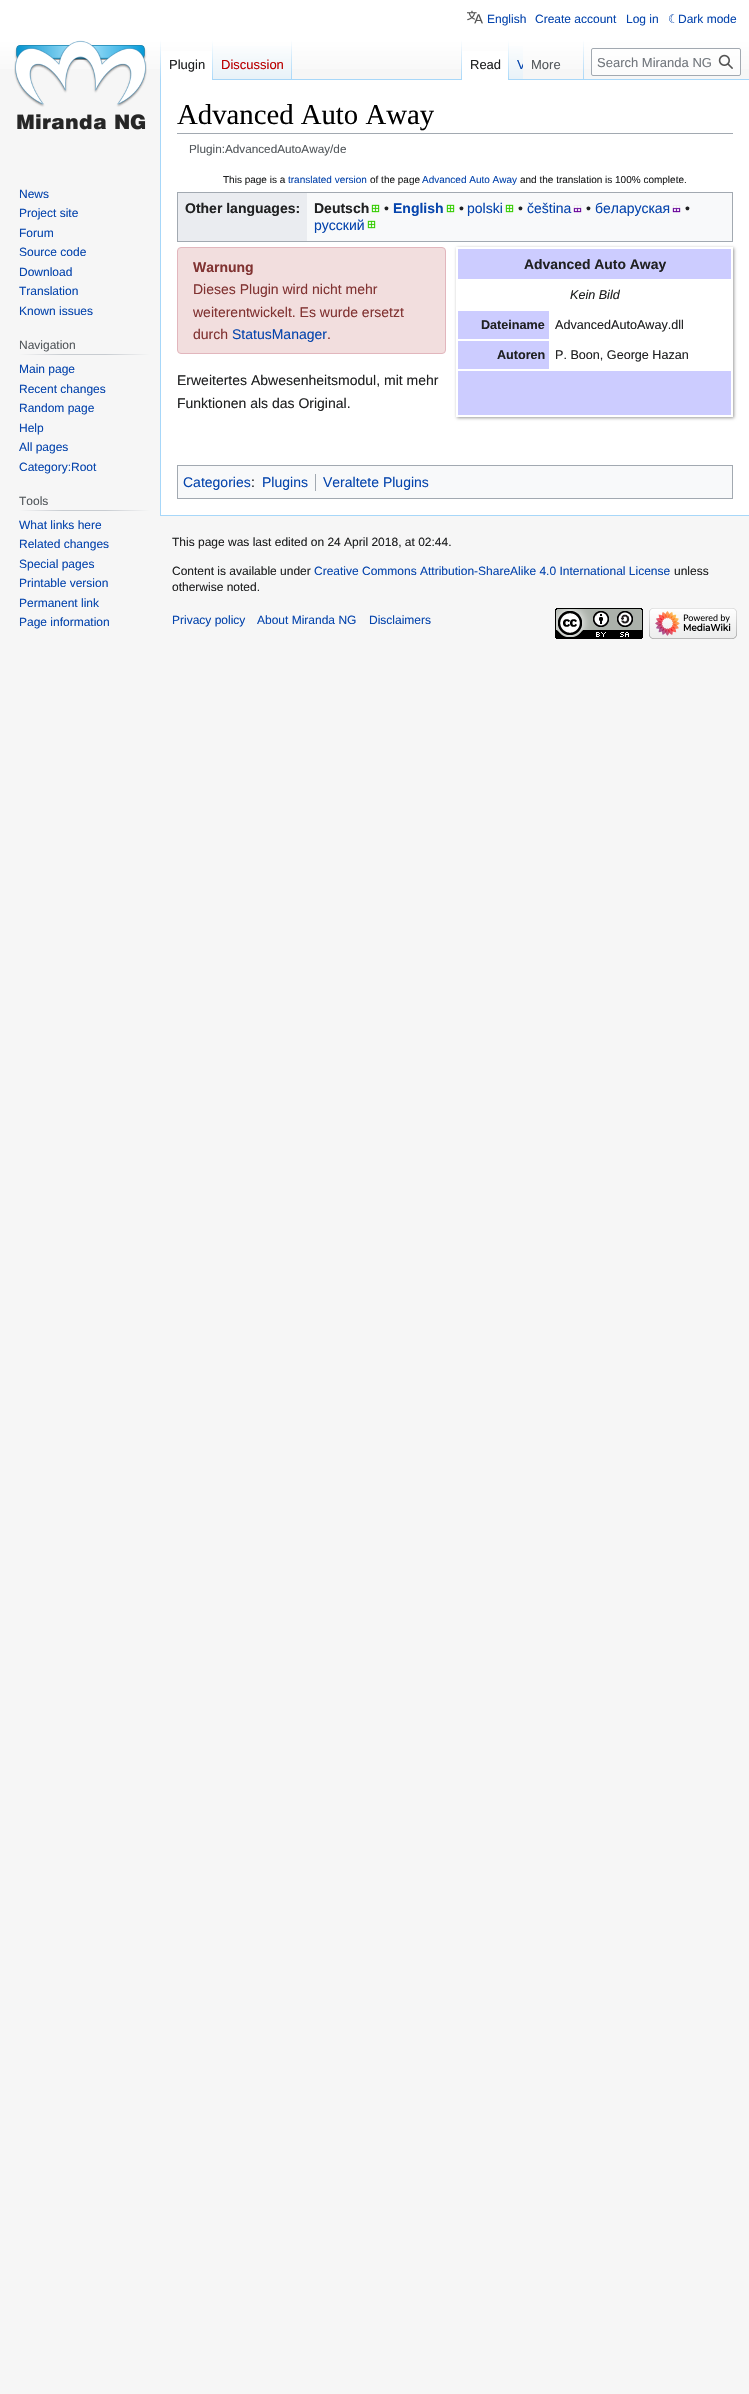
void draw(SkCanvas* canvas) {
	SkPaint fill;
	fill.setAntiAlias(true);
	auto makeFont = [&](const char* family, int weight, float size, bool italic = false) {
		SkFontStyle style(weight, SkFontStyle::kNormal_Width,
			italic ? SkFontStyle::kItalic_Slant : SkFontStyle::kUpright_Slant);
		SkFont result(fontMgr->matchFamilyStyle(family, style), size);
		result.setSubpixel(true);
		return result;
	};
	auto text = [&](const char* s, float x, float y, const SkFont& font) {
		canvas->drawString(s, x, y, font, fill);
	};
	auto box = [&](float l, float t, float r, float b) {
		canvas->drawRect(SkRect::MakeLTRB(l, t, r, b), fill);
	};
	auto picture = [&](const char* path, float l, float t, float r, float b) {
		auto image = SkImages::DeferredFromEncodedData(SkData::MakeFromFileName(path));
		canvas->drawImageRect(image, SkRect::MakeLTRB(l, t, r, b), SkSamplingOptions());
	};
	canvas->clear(0xFFF6F6F6);
	{
		const SkColor colors[] = {0xFFFFFFFF, 0xFFF6F6F6};
		const float stops[] = {0.5f, 1};
		const SkPoint ends[] = {{375, 0}, {375, 80}};
		fill.setShader(SkGradientShader::MakeLinear(ends, colors, stops, 2, SkTileMode::kClamp));
		fill.setAlpha(255);
	}
	box(0, 0, 749, 69);
	picture("image0.png", 467, 10, 483, 24);
	fill.setShader(nullptr);
	fill.setColor(0xFFA7D7F9);
	box(160, 515, 749, 516);
	box(160, 79, 161, 516);
	{
		const SkColor colors[] = {0x00A7D7F9, 0xFFA7D7F9};
		const float stops[] = {0, 1};
		const SkPoint ends[] = {{161, 40}, {161, 80}};
		fill.setShader(SkGradientShader::MakeLinear(ends, colors, stops, 2, SkTileMode::kClamp));
		fill.setAlpha(255);
	}
	box(160, 40, 161, 80);
	fill.setShader(nullptr);
	fill.setColor(0xFFFFFFFF);
	box(161, 51, 212, 80);
	{
		const SkColor colors[] = {0xFFFFFFFF, 0xFFA7D7F9};
		const float stops[] = {0, 1};
		const SkPoint ends[] = {{213, 40}, {213, 80}};
		fill.setShader(SkGradientShader::MakeLinear(ends, colors, stops, 2, SkTileMode::kClamp));
		fill.setAlpha(255);
	}
	box(212, 40, 213, 80);
	{
		const SkColor colors[] = {0xFF77C1F6, 0xFFE8F2F8, 0xFFFFFFFF};
		const float stops[] = {0, 0.03f, 1};
		const SkPoint ends[] = {{253, 80}, {253, 40}};
		fill.setShader(SkGradientShader::MakeLinear(ends, colors, stops, 3, SkTileMode::kClamp));
		fill.setAlpha(255);
	}
	box(213, 46, 292, 80);
	{
		const SkColor colors[] = {0x00A7D7F9, 0xFFA7D7F9};
		const float stops[] = {0, 1};
		const SkPoint ends[] = {{292, 40}, {292, 80}};
		fill.setShader(SkGradientShader::MakeLinear(ends, colors, stops, 2, SkTileMode::kClamp));
		fill.setAlpha(255);
	}
	box(291, 40, 292, 80);
	fill.setShader(nullptr);
	fill.setColor(0xFFA7D7F9);
	box(292, 79, 749, 80);
	{
		const SkColor colors[] = {0x00A7D7F9, 0xFFA7D7F9};
		const float stops[] = {0, 1};
		const SkPoint ends[] = {{462, 40}, {462, 80}};
		fill.setShader(SkGradientShader::MakeLinear(ends, colors, stops, 2, SkTileMode::kClamp));
		fill.setAlpha(255);
	}
	box(461, 40, 462, 80);
	fill.setShader(nullptr);
	fill.setColor(0xFFFFFFFF);
	box(462, 51, 508, 80);
	{
		const SkColor colors[] = {0xFFFFFFFF, 0xFFA7D7F9};
		const float stops[] = {0, 1};
		const SkPoint ends[] = {{509, 40}, {509, 80}};
		fill.setShader(SkGradientShader::MakeLinear(ends, colors, stops, 2, SkTileMode::kClamp));
		fill.setAlpha(255);
	}
	box(508, 40, 509, 80);
	{
		const SkColor colors[] = {0xFF77C1F6, 0xFFE8F2F8, 0xFFFFFFFF};
		const float stops[] = {0, 0.03f, 1};
		const SkPoint ends[] = {{516, 80}, {516, 40}};
		fill.setShader(SkGradientShader::MakeLinear(ends, colors, stops, 3, SkTileMode::kClamp));
		fill.setAlpha(255);
	}
	box(509, 46, 523, 79);
	{
		const SkColor colors[] = {0x00A7D7F9, 0xFFA7D7F9};
		const float stops[] = {0, 1};
		const SkPoint ends[] = {{584, 40}, {584, 80}};
		fill.setShader(SkGradientShader::MakeLinear(ends, colors, stops, 2, SkTileMode::kClamp));
		fill.setAlpha(255);
	}
	box(583, 40, 584, 80);
	fill.setShader(nullptr);
	fill.setColor(0x80FFFFFF);
	canvas->drawRoundRect(SkRect::MakeLTRB(591.5f, 48.5f, 740.5f, 75.5f), 1.5f, 1.5f, fill);
	fill.setStyle(SkPaint::kStroke_Style);
	fill.setStrokeWidth(1);
	fill.setColor(0xFFA2A9B1);
	canvas->drawRoundRect(SkRect::MakeLTRB(591.5f, 48.5f, 740.5f, 75.5f), 1.5f, 1.5f, fill);
	picture("image1.png", 718, 54, 733, 69);
	picture("image2.png", 14, 40, 147, 130);
	fill.setStyle(SkPaint::kFill_Style);
	{
		const SkColor colors[] = {0xFFF6F6F6, 0xFFC8CCD1, 0xFFC8CCD1, 0xFFF6F6F6};
		const float stops[] = {0, 0.33f, 0.66f, 1};
		const SkPoint ends[] = {{19, 355}, {150, 355}};
		fill.setShader(SkGradientShader::MakeLinear(ends, colors, stops, 4, SkTileMode::kClamp));
		fill.setAlpha(255);
	}
	box(19, 354, 150, 355);
	{
		const SkColor colors[] = {0xFFF6F6F6, 0xFFC8CCD1, 0xFFC8CCD1, 0xFFF6F6F6};
		const float stops[] = {0, 0.33f, 0.66f, 1};
		const SkPoint ends[] = {{19, 511}, {150, 511}};
		fill.setShader(SkGradientShader::MakeLinear(ends, colors, stops, 4, SkTileMode::kClamp));
		fill.setAlpha(255);
	}
	box(19, 510, 150, 511);
	fill.setShader(nullptr);
	fill.setColor(0xFFFFFFFF);
	box(161, 80, 749, 515);
	fill.setColor(0xFFA2A9B1);
	box(177, 133, 733, 134);
	fill.setColor(0xFFF8F9FA);
	box(307, 193, 732, 241);
	fill.setStyle(SkPaint::kStroke_Style);
	fill.setColor(0xFFA2A9B1);
	canvas->drawRect(SkRect::MakeLTRB(177.5f, 192.5f, 732.5f, 241.5f), fill);
	fill.setStyle(SkPaint::kFill_Style);
	fill.setColor(0xFFEAECF0);
	box(178, 193, 307, 241);
	picture("image3.png", 371, 204, 380, 213);
	picture("image3.png", 446, 204, 455, 213);
	picture("image3.png", 505, 204, 514, 213);
	picture("image4.png", 573, 205, 582, 213);
	picture("image4.png", 672, 205, 681, 213);
	picture("image3.png", 367, 220, 376, 229);
	fill.setColor(0xFFF2DEDE);
	canvas->drawRoundRect(SkRect::MakeLTRB(177.5f, 247.5f, 445.5f, 353.5f), 3.5f, 3.5f, fill);
	fill.setStyle(SkPaint::kStroke_Style);
	fill.setColor(0xFFE2B6BD);
	canvas->drawRoundRect(SkRect::MakeLTRB(177.5f, 247.5f, 445.5f, 353.5f), 3.5f, 3.5f, fill);
	canvas->save();
	canvas->clipPath(SkPathBuilder(SkPathFillType::kEvenOdd).moveTo(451, 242).lineTo(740, 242).lineTo(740, 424).lineTo(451, 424).close().moveTo(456, 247).lineTo(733, 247).lineTo(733, 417).lineTo(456, 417).close().detach(), true);
	fill.setStyle(SkPaint::kFill_Style);
	fill.setColor(0xFF999999);
	fill.setMaskFilter(SkMaskFilter::MakeBlur(kNormal_SkBlurStyle, 1.5f));
	canvas->drawRect(SkRect::MakeLTRB(457, 248, 734, 418), fill);
	fill.setMaskFilter(nullptr);
	canvas->restore();
	fill.setColor(0xFFCCCCFF);
	box(458, 249, 731, 279);
	box(458, 311, 549, 339);
	box(458, 341, 549, 369);
	box(458, 371, 731, 415);
	fill.setColor(0xFFF8F9FA);
	canvas->drawRect(SkRect::MakeLTRB(177.5f, 465.5f, 732.5f, 498.5f), fill);
	fill.setStyle(SkPaint::kStroke_Style);
	fill.setColor(0xFFA2A9B1);
	canvas->drawRect(SkRect::MakeLTRB(177.5f, 465.5f, 732.5f, 498.5f), fill);
	fill.setStyle(SkPaint::kFill_Style);
	box(315, 474, 316, 491);
	picture("image5.png", 555, 608, 643, 639);
	picture("image6.png", 649, 608, 737, 639);
	auto font1 = makeFont("Liberation Sans", 400, 12);
	fill.setColor(0xFF0645AD);
	text("English", 487, 23, font1);
	text("Create account", 535, 23, font1);
	text("Log in", 626, 23, font1);
	auto font2 = makeFont("DejaVu Sans", 400, 12);
	text("☾", 668, 23, font2);
	text("Dark mode", 678, 23, font1);
	auto font3 = makeFont("Liberation Sans", 400, 13);
	fill.setColor(0xFF202122);
	text("Plugin", 169, 69, font3);
	fill.setColor(0xFFBA0000);
	text("Discussion", 221, 69, font3);
	fill.setColor(0xFF202122);
	text("Read", 470, 69, font3);
	canvas->save();
	canvas->clipRect(SkRect::MakeLTRB(509, 40, 523, 80));
	fill.setColor(0xFF0645AD);
	text("V", 517, 69, font3);
	canvas->restore();
	fill.setColor(0xFF54595D);
	text("More", 531, 69, font3);
	fill.setColor(0xFF72777D);
	text("Search Miranda NG", 597, 67, font3);
	fill.setColor(0xFF0645AD);
	text("News", 19, 198, font1);
	text("Project site", 19, 217, font1);
	text("Forum", 19, 237, font1);
	text("Source code", 19, 256, font1);
	text("Download", 19, 276, font1);
	text("Translation", 19, 295, font1);
	text("Known issues", 19, 315, font1);
	fill.setColor(0xFF54595D);
	text("Navigation", 19, 349, font1);
	fill.setColor(0xFF0645AD);
	text("Main page", 19, 373, font1);
	text("Recent changes", 19, 393, font1);
	text("Random page", 19, 412, font1);
	text("Help", 19, 432, font1);
	text("All pages", 19, 451, font1);
	text("Category:Root", 19, 471, font1);
	fill.setColor(0xFF54595D);
	text("Tools", 19, 505, font1);
	fill.setColor(0xFF0645AD);
	text("What links here", 19, 529, font1);
	text("Related changes", 19, 548, font1);
	text("Special pages", 19, 568, font1);
	text("Printable version", 19, 587, font1);
	text("Permanent link", 19, 607, font1);
	text("Page information", 19, 626, font1);
	auto font4 = makeFont("Liberation Serif", 400, 28.75f);
	fill.setColor(0xFF000000);
	text("Advanced Auto Away", 177, 124, font4);
	auto font5 = makeFont("Liberation Sans", 400, 11.75f);
	fill.setColor(0xFF54595D);
	text("Plugin:AdvancedAutoAway/de", 189, 153, font5);
	auto font6 = makeFont("Liberation Sans", 400, 10);
	fill.setColor(0xFF202122);
	text("This page is a", 223, 183, font6);
	fill.setColor(0xFF0645AD);
	text("translated version", 288, 183, font6);
	fill.setColor(0xFF202122);
	text("of the page", 370, 183, font6);
	fill.setColor(0xFF0645AD);
	text("Advanced Auto Away", 422, 183, font6);
	fill.setColor(0xFF202122);
	text("and the translation is 100% complete.", 520, 183, font6);
	auto font7 = makeFont("Liberation Sans", 700, 14);
	text("Other languages:", 185, 213, font7);
	text("Deutsch", 314, 213, font7);
	auto font8 = makeFont("Liberation Sans", 400, 14);
	text("•", 384, 213, font8);
	fill.setColor(0xFF0645AD);
	text("English", 393, 213, font7);
	fill.setColor(0xFF202122);
	text("•", 459, 213, font8);
	fill.setColor(0xFF0645AD);
	text("polski", 467, 213, font8);
	fill.setColor(0xFF202122);
	text("•", 518, 213, font8);
	fill.setColor(0xFF0645AD);
	text("čeština", 527, 213, font8);
	fill.setColor(0xFF202122);
	text("•", 586, 213, font8);
	fill.setColor(0xFF0645AD);
	text("беларуская", 595, 213, font8);
	fill.setColor(0xFF202122);
	text("•", 685, 213, font8);
	fill.setColor(0xFF0645AD);
	text("русский", 314, 230, font8);
	fill.setColor(0xFF813332);
	text("Warnung", 193, 272, font7);
	text("Dieses Plugin wird nicht mehr", 193, 294, font8);
	text("weiterentwickelt. Es wurde ersetzt", 193, 317, font8);
	text("durch", 193, 339, font8);
	fill.setColor(0xFF0645AD);
	text("StatusManager", 232, 339, font8);
	fill.setColor(0xFF813332);
	text(".", 327, 339, font8);
	auto font9 = makeFont("Liberation Sans", 700, 13.9f);
	fill.setColor(0xFF202122);
	text("Advanced Auto Away", 524, 269, font9);
	auto font10 = makeFont("Liberation Sans", 400, 12.6f, true);
	text("Kein Bild", 570, 299, font10);
	auto font11 = makeFont("Liberation Sans", 700, 12.6f);
	text("Dateiname", 481, 329, font11);
	auto font12 = makeFont("Liberation Sans", 400, 12.6f);
	text("AdvancedAutoAway.dll", 555, 329, font12);
	text("Autoren", 497, 359, font11);
	text("P. Boon, George Hazan", 555, 359, font12);
	text("Erweitertes Abwesenheitsmodul, mit mehr", 177, 385, font8);
	text("Funktionen als das Original.", 177, 408, font8);
	fill.setColor(0xFF0645AD);
	text("Categories", 183, 487, font8);
	fill.setColor(0xFF202122);
	text(":", 251, 487, font8);
	fill.setColor(0xFF0645AD);
	text("Plugins", 262, 487, font8);
	text("Veraltete Plugins", 323, 487, font8);
	fill.setColor(0xFF202122);
	text("This page was last edited on 24 April 2018, at 02:44.", 172, 546, font1);
	text("Content is available under", 172, 575, font1);
	fill.setColor(0xFF0645AD);
	text("Creative Commons Attribution-ShareAlike 4.0 International License", 314, 575, font1);
	fill.setColor(0xFF202122);
	text("unless", 674, 575, font1);
	text("otherwise noted.", 172, 591, font1);
	fill.setColor(0xFF0645AD);
	text("Privacy policy", 172, 624, font1);
	text("About Miranda NG", 257, 624, font1);
	text("Disclaimers", 369, 624, font1);
}
